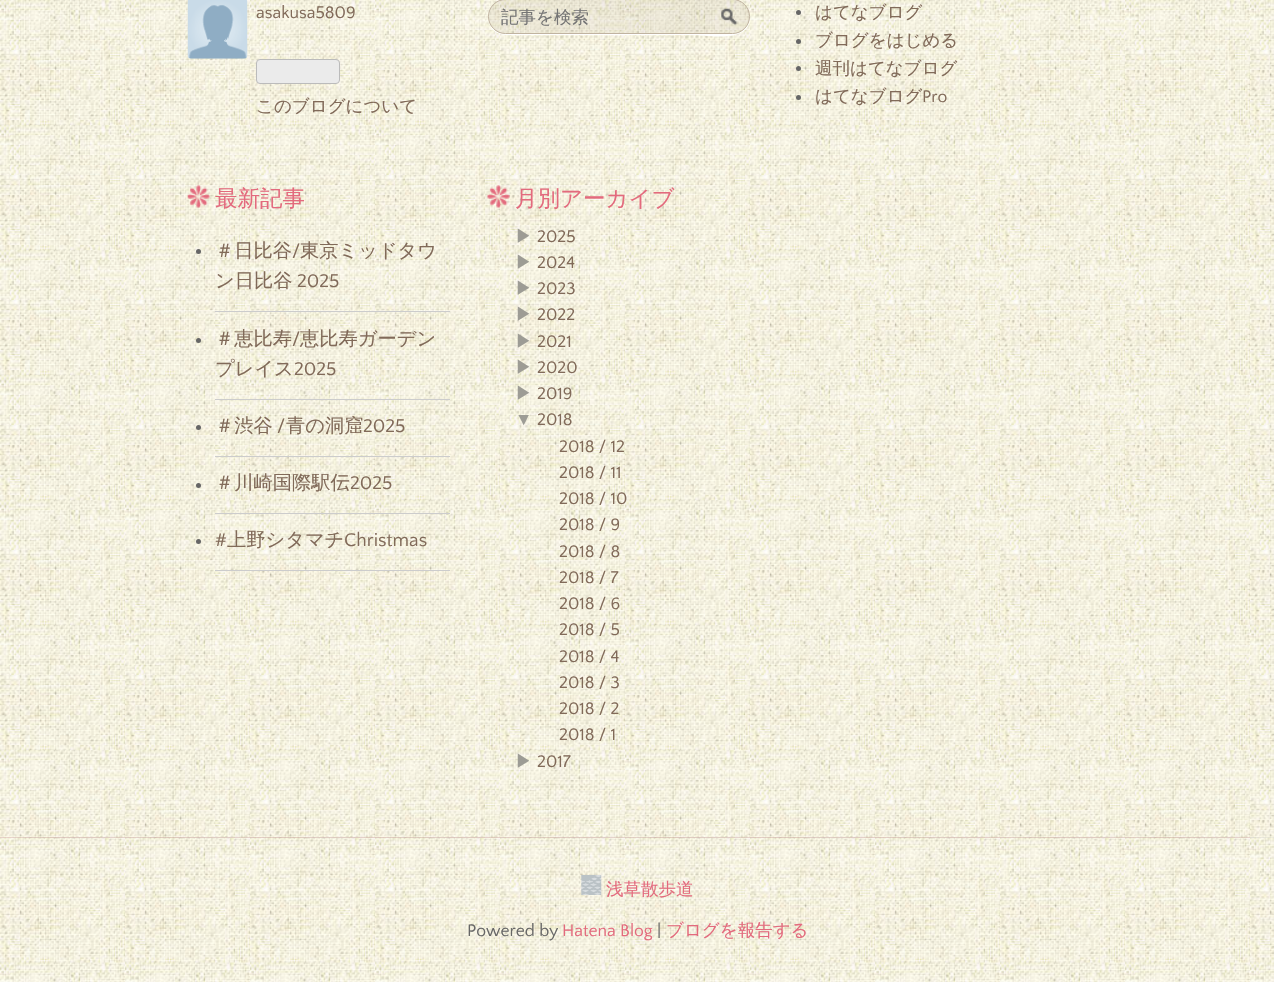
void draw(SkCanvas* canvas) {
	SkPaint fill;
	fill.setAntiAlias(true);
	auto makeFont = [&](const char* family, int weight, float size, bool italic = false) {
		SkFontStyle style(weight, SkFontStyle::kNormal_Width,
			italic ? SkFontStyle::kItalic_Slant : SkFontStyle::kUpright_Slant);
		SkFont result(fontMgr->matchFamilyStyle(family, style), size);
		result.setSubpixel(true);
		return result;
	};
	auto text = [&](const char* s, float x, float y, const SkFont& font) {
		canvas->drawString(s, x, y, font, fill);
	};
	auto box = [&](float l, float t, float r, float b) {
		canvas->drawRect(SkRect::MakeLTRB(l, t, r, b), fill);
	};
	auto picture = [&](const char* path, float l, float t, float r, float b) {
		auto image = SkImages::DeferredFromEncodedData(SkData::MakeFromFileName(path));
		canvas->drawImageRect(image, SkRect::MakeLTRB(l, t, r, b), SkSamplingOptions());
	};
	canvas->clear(0xFFFFFFFF);
	picture("image0.png", 0, 837, 1250, 838);
	fill.setColor(0x80000000);
	fill.setMaskFilter(SkMaskFilter::MakeBlur(kNormal_SkBlurStyle, 19));
	canvas->drawRect(SkRect::MakeLTRB(0, -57, 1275, 844), fill);
	fill.setMaskFilter(nullptr);
	picture("image1.png", 0, 0, 1274, 838);
	picture("image2.png", 187, 0, 248, 59);
	fill.setColor(0xFFEBEBEB);
	canvas->drawRoundRect(SkRect::MakeLTRB(256.5f, 59.5f, 339.5f, 83.5f), 3.5f, 3.5f, fill);
	fill.setStyle(SkPaint::kStroke_Style);
	fill.setStrokeWidth(1);
	fill.setColor(0xFFBBBBBB);
	canvas->drawRoundRect(SkRect::MakeLTRB(256.5f, 59.5f, 339.5f, 83.5f), 3.5f, 3.5f, fill);
	fill.setStyle(SkPaint::kFill_Style);
	fill.setColor(0xFFFFFFFF);
	canvas->drawPath(SkPathBuilder().moveTo(489, 23).cubicTo(491, 30, 498, 35, 506, 35).lineTo(695, 35).cubicTo(706, 35, 751, 44, 750, 17).cubicTo(750, 26, 742, 34, 732, 34).lineTo(505, 34).cubicTo(498, 34, 492, 29, 489, 23).close().detach(), fill);
	fill.setColor(0x1FA6937C);
	canvas->drawRoundRect(SkRect::MakeLTRB(488.5f, -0.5f, 749.5f, 33.5f), 17, 17, fill);
	fill.setStyle(SkPaint::kStroke_Style);
	fill.setColor(0xFFC0B3A0);
	canvas->drawRoundRect(SkRect::MakeLTRB(488.5f, -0.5f, 749.5f, 33.5f), 17, 17, fill);
	picture("image3.png", 721, 8, 738, 26);
	fill.setStyle(SkPaint::kFill_Style);
	fill.setColor(0xFF666666);
	canvas->drawCircle(798.5f, 12.5f, 2.5f, fill);
	canvas->drawCircle(798.5f, 41.5f, 2.5f, fill);
	canvas->drawCircle(798.5f, 68.5f, 2.5f, fill);
	canvas->drawCircle(798.5f, 97.5f, 2.5f, fill);
	picture("image4.png", 187, 185, 210, 208);
	fill.setColor(0xFFCCCCCC);
	box(215, 311, 450, 312);
	fill.setColor(0xFF666666);
	canvas->drawCircle(198.5f, 251.5f, 2.5f, fill);
	fill.setColor(0xFFCCCCCC);
	box(215, 399, 450, 400);
	fill.setColor(0xFF666666);
	canvas->drawCircle(198.5f, 340.5f, 2.5f, fill);
	fill.setColor(0xFFCCCCCC);
	box(215, 456, 450, 457);
	fill.setColor(0xFF666666);
	canvas->drawCircle(198.5f, 427.5f, 2.5f, fill);
	fill.setColor(0xFFCCCCCC);
	box(215, 513, 450, 514);
	fill.setColor(0xFF666666);
	canvas->drawCircle(198.5f, 485.5f, 2.5f, fill);
	fill.setColor(0xFFCCCCCC);
	box(215, 570, 450, 571);
	fill.setColor(0xFF666666);
	canvas->drawCircle(198.5f, 541.5f, 2.5f, fill);
	picture("image5.png", 487, 185, 510, 208);
	picture("image6.png", 0, 837, 1274, 982);
	picture("image7.png", 581, 875, 602, 895);
	auto font1 = makeFont("Quattrocento Sans", 400, 17.5f);
	fill.setColor(0xFF816A59);
	text("asakusa5809", 256, 18, font1);
	auto font2 = makeFont("WenQuanYi Zen Hei", 500, 17.5f);
	text("このブログについて", 256, 112, font2);
	fill.setColor(0xFF757575);
	text("記事を検索", 501, 23, font2);
	fill.setColor(0xFF816A59);
	text("はてなブログ", 815, 18, font2);
	text("ブログをはじめる", 815, 46, font2);
	text("週刊はてなブログ", 815, 74, font2);
	text("はてなブログ", 815, 102, font2);
	text("Pro", 922, 102, font1);
	auto font3 = makeFont("WenQuanYi Zen Hei", 500, 22.5f);
	fill.setColor(0xFFE36A7D);
	text("最新記事", 215, 206, font3);
	auto font4 = makeFont("WenQuanYi Zen Hei", 500, 19.25f);
	fill.setColor(0xFF816A59);
	text("＃日比谷", 215, 257, font4);
	auto font5 = makeFont("Quattrocento Sans", 400, 19.25f);
	text("/", 292, 257, font5);
	text("東京ミッドタウ", 300, 257, font4);
	text("ン日比谷", 215, 287, font4);
	text("2025", 297, 287, font5);
	text("＃恵比寿", 215, 345, font4);
	text("/", 292, 345, font5);
	text("恵比寿ガーデン", 300, 345, font4);
	text("プレイス", 215, 375, font4);
	text("2025", 294, 375, font5);
	text("＃渋谷", 215, 432, font4);
	text("/", 277, 432, font5);
	text("青の洞窟", 286, 432, font4);
	text("2025", 363, 432, font5);
	text("＃川崎国際駅伝", 215, 489, font4);
	text("2025", 350, 489, font5);
	text("#", 215, 546, font5);
	text("上野シタマチ", 227, 546, font4);
	text("Christmas", 344, 546, font5);
	fill.setColor(0xFFE36A7D);
	text("月別アーカイブ", 515, 206, font3);
	fill.setColor(0xFF9D9C95);
	text("▶", 515, 242, font2);
	fill.setColor(0xFF816A59);
	text("2025", 537, 242, font1);
	fill.setColor(0xFF9D9C95);
	text("▶", 515, 268, font2);
	fill.setColor(0xFF816A59);
	text("2024", 537, 268, font1);
	fill.setColor(0xFF9D9C95);
	text("▶", 515, 294, font2);
	fill.setColor(0xFF816A59);
	text("2023", 537, 294, font1);
	fill.setColor(0xFF9D9C95);
	text("▶", 515, 320, font2);
	fill.setColor(0xFF816A59);
	text("2022", 537, 320, font1);
	fill.setColor(0xFF9D9C95);
	text("▶", 515, 347, font2);
	fill.setColor(0xFF816A59);
	text("2021", 537, 347, font1);
	fill.setColor(0xFF9D9C95);
	text("▶", 515, 373, font2);
	fill.setColor(0xFF816A59);
	text("2020", 537, 373, font1);
	fill.setColor(0xFF9D9C95);
	text("▶", 515, 399, font2);
	fill.setColor(0xFF816A59);
	text("2019", 537, 399, font1);
	auto font6 = makeFont("Liberation Sans", 400, 17.5f);
	fill.setColor(0xFF9D9C95);
	text("▼", 515, 425, font6);
	fill.setColor(0xFF816A59);
	text("2018", 537, 425, font1);
	text("2018 / 12", 559, 452, font1);
	text("2018 / 11", 559, 478, font1);
	text("2018 / 10", 559, 504, font1);
	text("2018 / 9", 559, 530, font1);
	text("2018 / 8", 559, 557, font1);
	text("2018 / 7", 559, 583, font1);
	text("2018 / 6", 559, 609, font1);
	text("2018 / 5", 559, 635, font1);
	text("2018 / 4", 559, 662, font1);
	text("2018 / 3", 559, 688, font1);
	text("2018 / 2", 559, 714, font1);
	text("2018 / 1", 559, 740, font1);
	fill.setColor(0xFF9D9C95);
	text("▶", 515, 767, font2);
	fill.setColor(0xFF816A59);
	text("2017", 537, 767, font1);
	fill.setColor(0xFFE36A7D);
	text("浅草散歩道", 606, 895, font2);
	fill.setColor(0xFF666666);
	text("Powered by", 467, 936, font1);
	fill.setColor(0xFFE36A7D);
	text("Hatena Blog", 562, 936, font1);
	fill.setColor(0xFF666666);
	text("|", 657, 936, font1);
	fill.setColor(0xFFE36A7D);
	text("ブログを報告する", 666, 936, font2);
}
